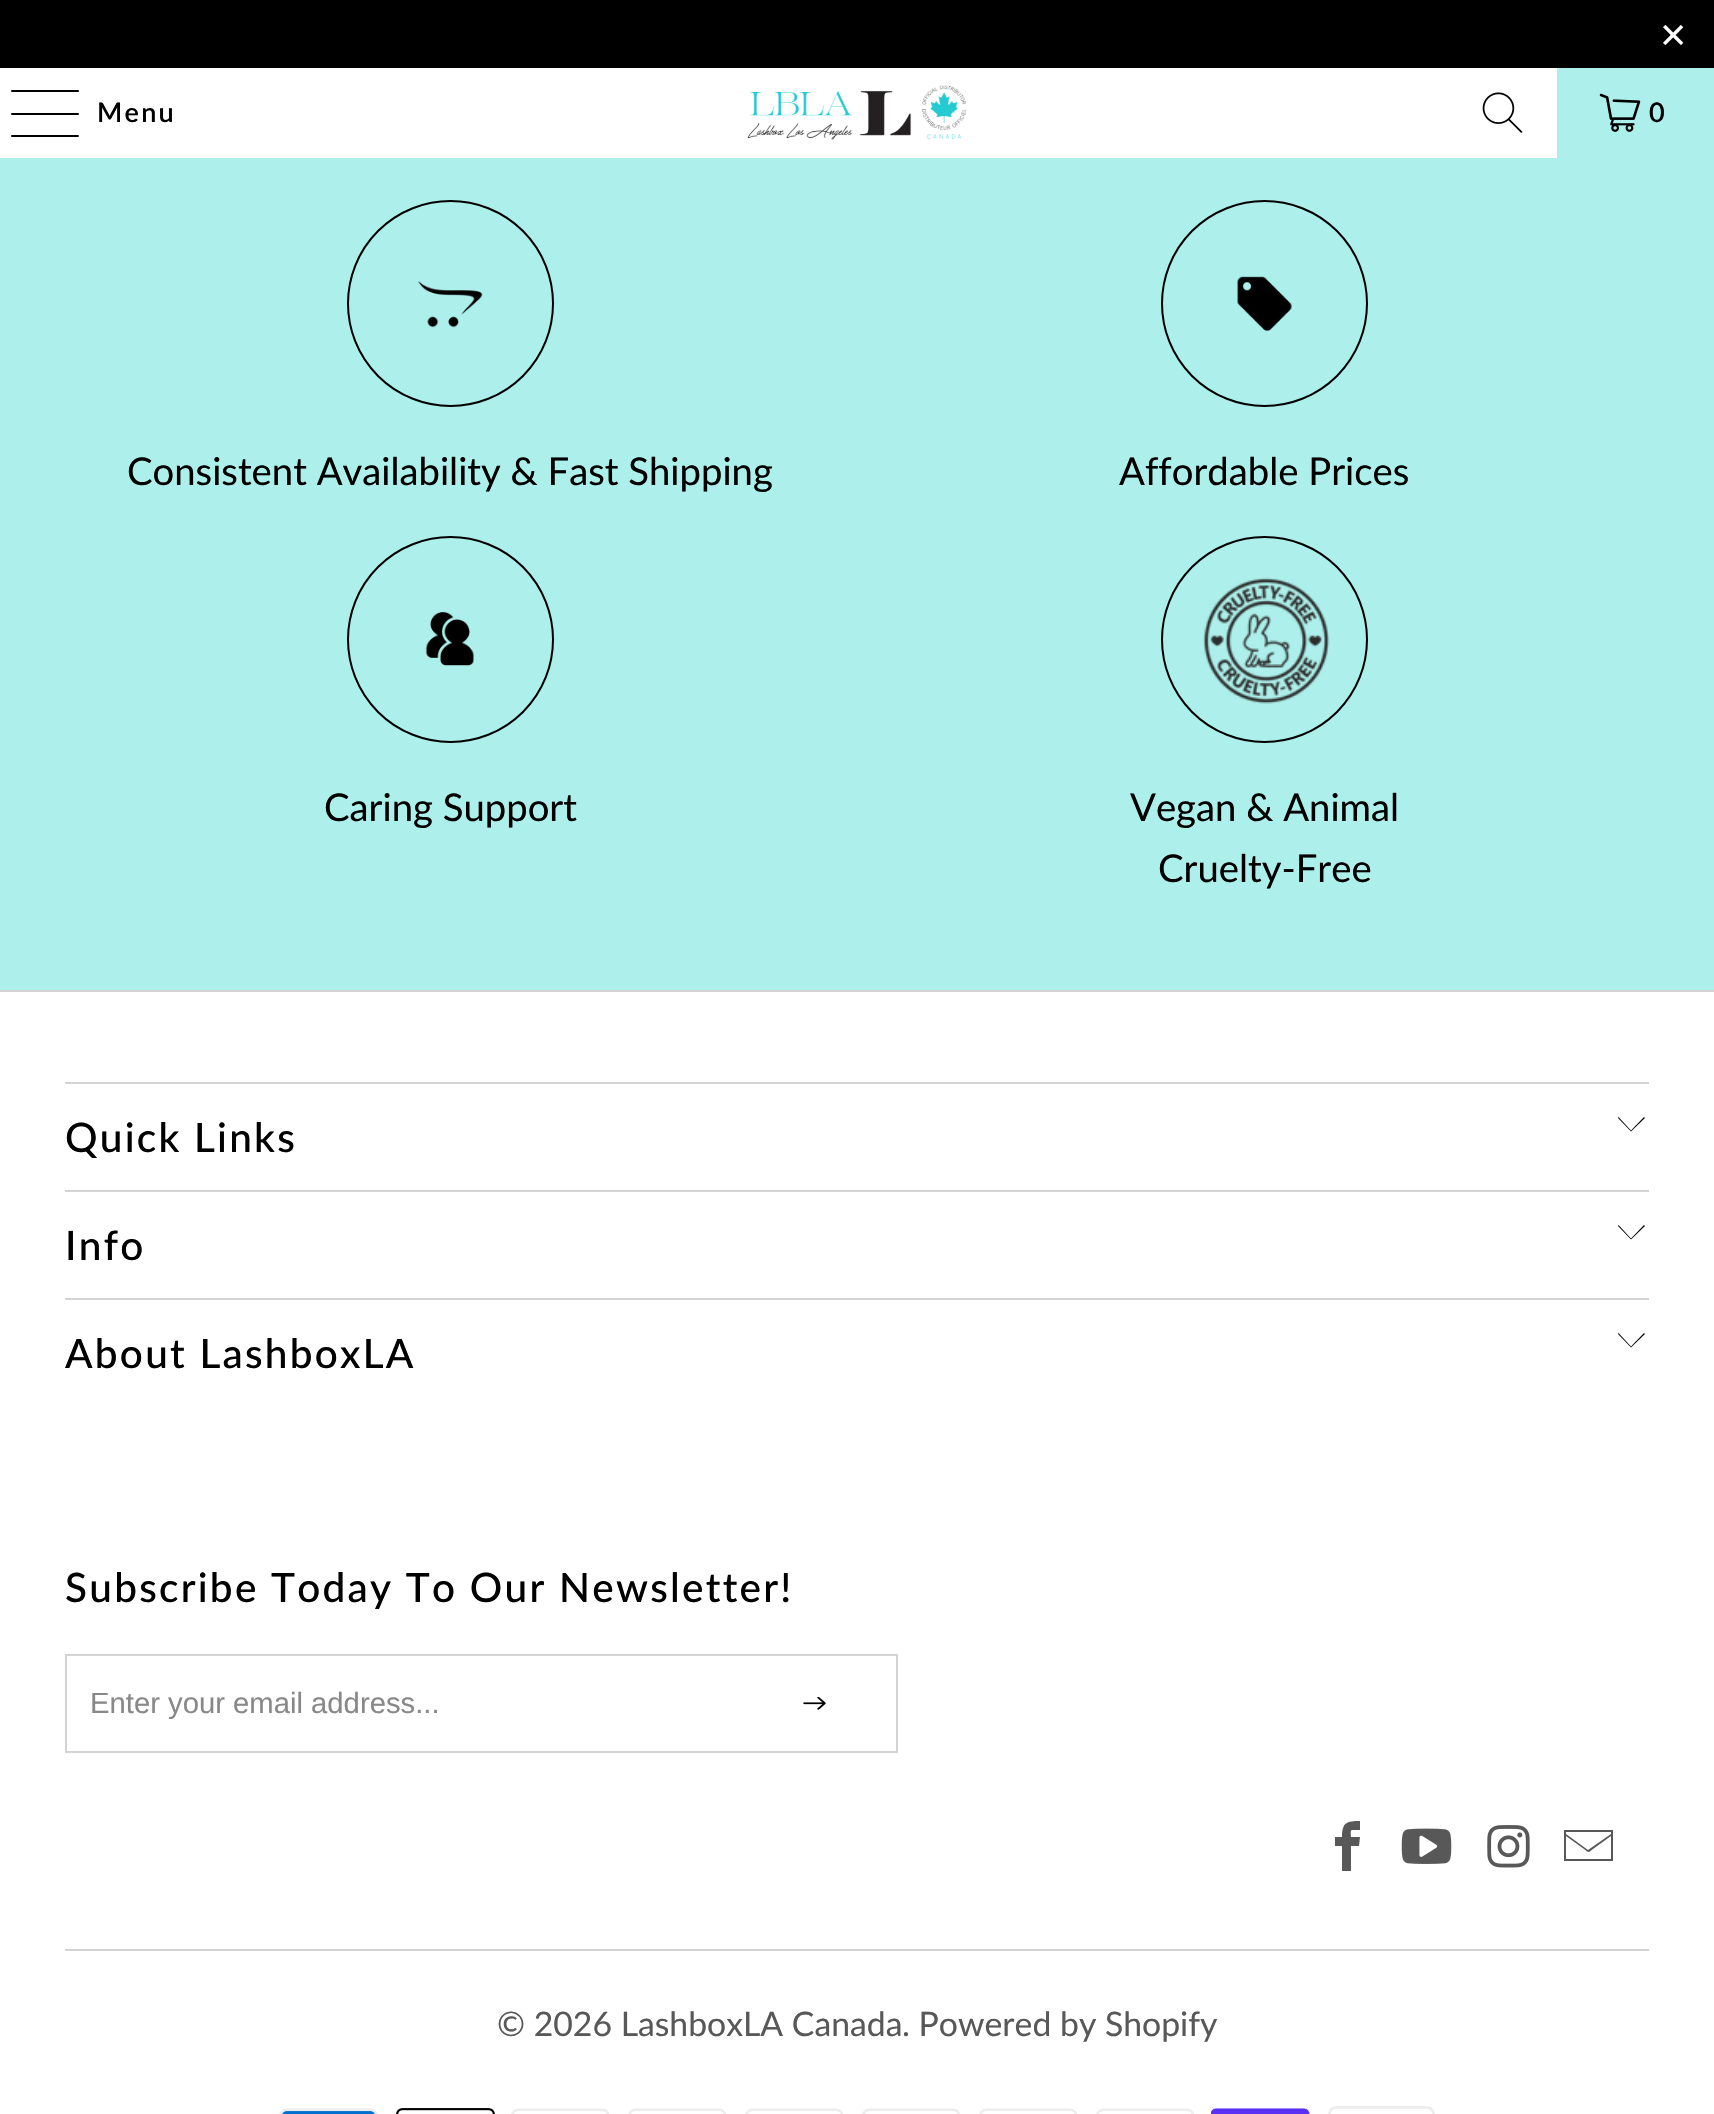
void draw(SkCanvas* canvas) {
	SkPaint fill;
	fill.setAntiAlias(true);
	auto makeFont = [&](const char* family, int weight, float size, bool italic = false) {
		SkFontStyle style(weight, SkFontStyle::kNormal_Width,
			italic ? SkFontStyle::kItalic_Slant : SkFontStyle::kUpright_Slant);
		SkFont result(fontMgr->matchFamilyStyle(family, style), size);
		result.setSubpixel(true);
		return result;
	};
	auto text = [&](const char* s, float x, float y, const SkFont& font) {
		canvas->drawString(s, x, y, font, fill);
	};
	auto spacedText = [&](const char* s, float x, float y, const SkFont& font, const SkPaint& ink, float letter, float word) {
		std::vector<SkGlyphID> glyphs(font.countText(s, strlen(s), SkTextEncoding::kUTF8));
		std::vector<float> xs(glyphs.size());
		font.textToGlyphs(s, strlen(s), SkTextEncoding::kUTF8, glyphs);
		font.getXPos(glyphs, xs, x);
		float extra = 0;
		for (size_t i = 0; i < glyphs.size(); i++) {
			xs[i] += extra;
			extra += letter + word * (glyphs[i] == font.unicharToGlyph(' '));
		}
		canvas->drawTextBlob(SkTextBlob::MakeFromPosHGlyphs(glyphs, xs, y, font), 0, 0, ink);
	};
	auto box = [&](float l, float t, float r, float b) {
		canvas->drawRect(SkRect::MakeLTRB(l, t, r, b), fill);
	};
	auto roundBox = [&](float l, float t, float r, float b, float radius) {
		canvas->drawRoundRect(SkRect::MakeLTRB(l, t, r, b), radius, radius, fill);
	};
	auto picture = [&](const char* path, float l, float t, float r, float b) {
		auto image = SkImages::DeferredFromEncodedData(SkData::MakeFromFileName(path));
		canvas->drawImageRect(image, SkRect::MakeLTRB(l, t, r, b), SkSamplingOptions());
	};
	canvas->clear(0xFFFFFFFF);
	fill.setColor(0xFF000000);
	box(0, 0, 1714, 68);
	roundBox(11, 90, 79, 92, 1);
	roundBox(11, 113, 79, 115, 1);
	roundBox(11, 135, 79, 137, 1);
	picture("image0.png", 747, 85, 967, 140);
	picture("image1.png", 1482, 92, 1523, 133);
	fill.setColor(0xFFADEFEA);
	box(1557, 68, 1714, 158);
	picture("image2.png", 1599, 93, 1641, 132);
	box(0, 158, 1714, 990);
	fill.setStyle(SkPaint::kStroke_Style);
	fill.setStrokeWidth(2);
	fill.setColor(0xFF000000);
	canvas->drawCircle(450.5f, 303.5f, 102.5f, fill);
	picture("image3.png", 418, 281, 483, 328);
	canvas->drawCircle(1264.5f, 303.5f, 102.5f, fill);
	picture("image4.png", 1237, 276, 1292, 331);
	canvas->drawCircle(450.5f, 639.5f, 102.5f, fill);
	picture("image5.png", 425, 612, 474, 666);
	canvas->drawCircle(1264.5f, 639.5f, 102.5f, fill);
	picture("image6.png", 1203, 577, 1330, 704);
	fill.setStyle(SkPaint::kFill_Style);
	fill.setColor(0xFFD3D3D3);
	box(0, 990, 1714, 992);
	box(65, 1082, 1649, 1084);
	fill.setColor(0xFF000000);
	canvas->drawPath(SkPathBuilder().moveTo(1631, 1131.5f).lineTo(1618, 1118).lineTo(1618.5f, 1117).lineTo(1631, 1130.5f).lineTo(1644, 1117).lineTo(1645, 1118).close().detach(), fill);
	fill.setColor(0xFFD3D3D3);
	box(65, 1190, 1649, 1192);
	fill.setColor(0xFF000000);
	canvas->drawPath(SkPathBuilder().moveTo(1631, 1239.5f).lineTo(1618, 1226).lineTo(1618.5f, 1225).lineTo(1631, 1238.5f).lineTo(1644, 1225).lineTo(1645, 1226).close().detach(), fill);
	fill.setColor(0xFFD3D3D3);
	box(65, 1298, 1649, 1300);
	fill.setColor(0xFF000000);
	canvas->drawPath(SkPathBuilder().moveTo(1631, 1347.5f).lineTo(1618, 1334).lineTo(1618.5f, 1333).lineTo(1631, 1346.5f).lineTo(1644, 1333).lineTo(1645, 1334).close().detach(), fill);
	fill.setStyle(SkPaint::kStroke_Style);
	fill.setColor(0xFFD3D3D3);
	canvas->drawRect(SkRect::MakeLTRB(66, 1655, 897, 1752), fill);
	picture("image7.png", 803, 1697, 826, 1710);
	fill.setStyle(SkPaint::kFill_Style);
	fill.setColor(0xFF585858);
	canvas->drawPath(SkPathBuilder().moveTo(1352, 1830).lineTo(1360, 1830).lineTo(1360, 1821).cubicTo(1347, 1821, 1342, 1822, 1342, 1837).lineTo(1335, 1837).lineTo(1335, 1846).lineTo(1342, 1846).lineTo(1342, 1871).lineTo(1351, 1871).lineTo(1351, 1846).lineTo(1359, 1846).lineTo(1360, 1837).lineTo(1351, 1837).cubicTo(1351, 1835, 1350, 1830, 1352, 1830).close().detach(), fill);
	picture("image8.png", 1401, 1828, 1452, 1864);
	picture("image9.png", 1487, 1825, 1530, 1868);
	canvas->drawPath(SkPathBuilder().moveTo(1564, 1830).lineTo(1564, 1861).lineTo(1613, 1861).lineTo(1613, 1830).close().moveTo(1611, 1832).lineTo(1611, 1834).lineTo(1588, 1850).lineTo(1566, 1834).lineTo(1566, 1832).close().moveTo(1566, 1859).lineTo(1566, 1836).lineTo(1584, 1849).cubicTo(1589, 1853, 1588, 1853, 1593, 1849).lineTo(1611, 1836).lineTo(1611, 1859).close().detach(), fill);
	fill.setColor(0xFFD3D3D3);
	box(65, 1949, 1649, 1951);
	picture("image10.png", 279, 2108, 378, 2114);
	picture("image11.png", 396, 2108, 495, 2114);
	picture("image12.png", 511, 2108, 609, 2114);
	picture("image12.png", 628, 2108, 726, 2114);
	picture("image12.png", 745, 2108, 843, 2114);
	picture("image12.png", 862, 2108, 960, 2114);
	picture("image12.png", 979, 2108, 1077, 2114);
	picture("image12.png", 1096, 2108, 1194, 2114);
	picture("image13.png", 1211, 2108, 1310, 2114);
	picture("image14.png", 1328, 2106, 1435, 2114);
	auto font1 = makeFont("Liberation Sans", 400, 45);
	fill.setColor(0xFFFFFFFF);
	spacedText("×", 1660, 50, font1, fill, 4, 0);
	auto font2 = makeFont("Lato", 600, 27);
	fill.setColor(0xFF000000);
	spacedText("Menu", 97, 122, font2, fill, 2.25f, 0);
	spacedText("0", 1649, 122, font2, fill, 2.25f, 0);
	auto font3 = makeFont("Lato", 400, 38.25f);
	text("Consistent Availability & Fast Shipping", 127, 485, font3);
	text("Affordable Prices", 1119, 485, font3);
	text("Caring Support", 324, 821, font3);
	text("Vegan & Animal", 1130, 821, font3);
	text("Cruelty-Free", 1158, 882, font3);
	auto font4 = makeFont("Lato", 500, 40.5f);
	spacedText("Quick Links", 65, 1152, font4, fill, 2.25f, 0);
	spacedText("Info", 65, 1260, font4, fill, 2.25f, 0);
	spacedText("About LashboxLA", 65, 1368, font4, fill, 2.25f, 0);
	spacedText("Subscribe Today To Our Newsletter!", 65, 1602, font4, fill, 2.25f, 0);
	auto font5 = makeFont("Liberation Sans", 400, 29.25f);
	fill.setColor(0xFF888888);
	text("Enter your email address...", 90, 1713, font5);
	auto font6 = makeFont("Lato", 400, 33.75f);
	fill.setColor(0xFF585858);
	text("© 2026 LashboxLA Canada", 497, 2036, font6);
	text(". Powered by Shopify", 902, 2036, font6);
}
